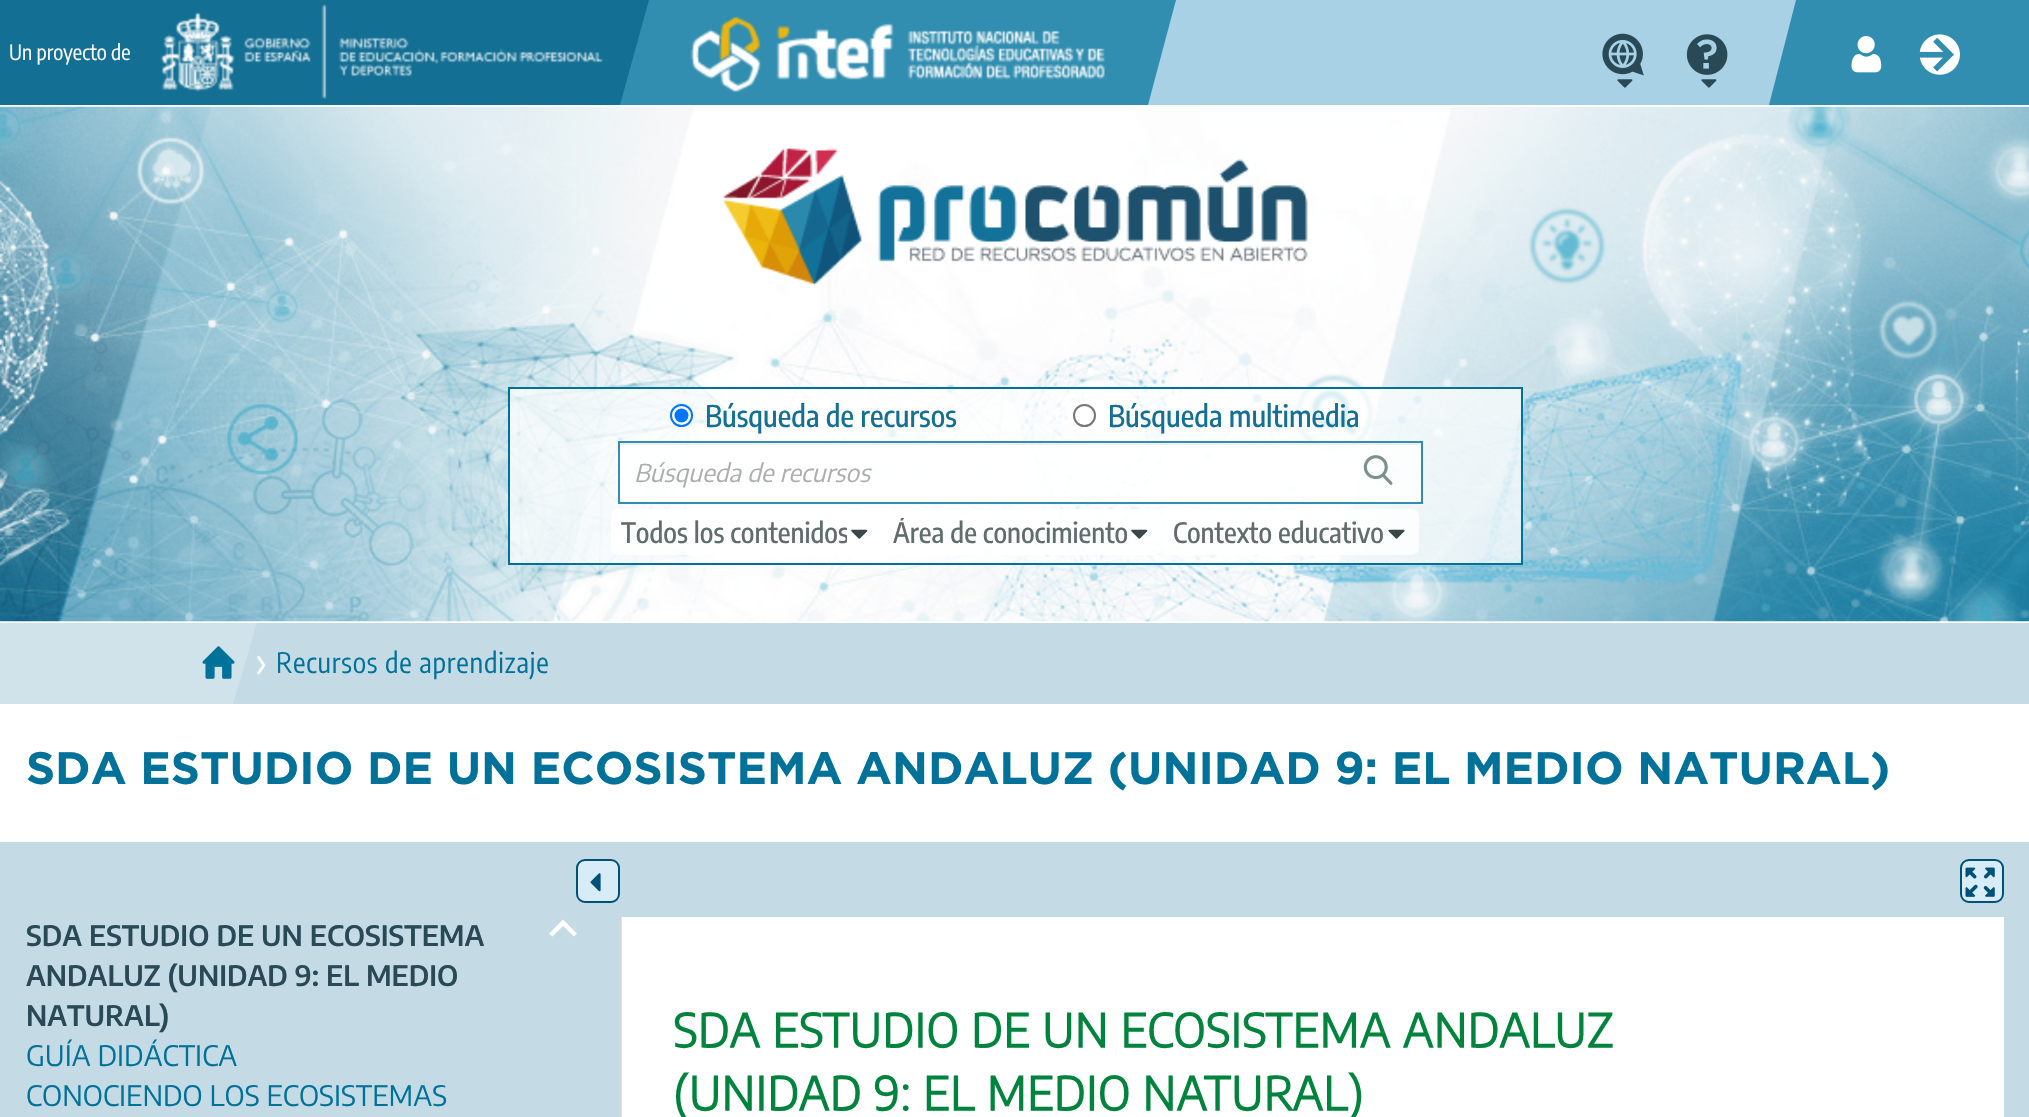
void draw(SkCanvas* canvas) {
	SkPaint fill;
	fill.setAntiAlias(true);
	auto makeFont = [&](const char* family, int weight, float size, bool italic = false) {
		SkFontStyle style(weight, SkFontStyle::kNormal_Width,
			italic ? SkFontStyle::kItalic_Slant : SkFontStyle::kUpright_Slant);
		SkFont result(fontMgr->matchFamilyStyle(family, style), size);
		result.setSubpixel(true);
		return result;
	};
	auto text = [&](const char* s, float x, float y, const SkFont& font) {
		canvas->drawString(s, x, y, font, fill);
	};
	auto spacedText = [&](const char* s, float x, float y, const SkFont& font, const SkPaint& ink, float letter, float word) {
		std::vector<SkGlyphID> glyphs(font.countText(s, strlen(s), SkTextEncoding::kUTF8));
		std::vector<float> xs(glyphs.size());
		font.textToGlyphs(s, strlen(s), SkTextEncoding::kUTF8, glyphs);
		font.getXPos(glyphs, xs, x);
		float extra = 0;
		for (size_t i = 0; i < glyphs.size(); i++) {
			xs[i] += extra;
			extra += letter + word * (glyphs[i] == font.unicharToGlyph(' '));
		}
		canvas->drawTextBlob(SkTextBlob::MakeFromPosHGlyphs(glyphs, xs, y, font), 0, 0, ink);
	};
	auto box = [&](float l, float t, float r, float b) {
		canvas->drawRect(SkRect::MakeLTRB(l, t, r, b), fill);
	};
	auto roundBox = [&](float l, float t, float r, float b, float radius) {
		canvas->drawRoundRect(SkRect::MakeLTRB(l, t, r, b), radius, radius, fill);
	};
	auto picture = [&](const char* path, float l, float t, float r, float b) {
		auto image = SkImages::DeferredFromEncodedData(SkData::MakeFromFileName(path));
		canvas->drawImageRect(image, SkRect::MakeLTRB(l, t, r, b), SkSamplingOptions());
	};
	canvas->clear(0xFFFFFFFF);
	fill.setColor(0xFF136F94);
	box(0, 0, 614, 105);
	picture("image0.png", 160, 4, 603, 99);
	fill.setColor(0xFF328EB0);
	box(620, 0, 1176, 105);
	fill.setColor(0xFF136F94);
	canvas->drawPath(SkPathBuilder().moveTo(614, 0).lineTo(649, 0).lineTo(620, 105).lineTo(614, 105).close().detach(), fill);
	picture("image1.png", 690, 16, 1105, 93);
	fill.setColor(0xFFA8D1E5);
	canvas->drawPath(SkPathBuilder().moveTo(1183, 105).lineTo(1148, 105).lineTo(1176, 0).lineTo(1183, 0).close().detach(), fill);
	box(1183, 0, 1796, 105);
	picture("image2.png", 1602, 33, 1644, 76);
	picture("image3.png", 1617, 79, 1633, 88);
	picture("image4.png", 1686, 34, 1728, 75);
	picture("image3.png", 1701, 79, 1717, 88);
	fill.setColor(0xFF328EB0);
	canvas->drawPath(SkPathBuilder().moveTo(1804, 105).lineTo(1769, 105).lineTo(1796, 0).lineTo(1804, 0).close().detach(), fill);
	box(1804, 0, 2029, 105);
	picture("image5.png", 1851, 36, 1882, 73);
	picture("image6.png", 1919, 34, 1960, 75);
	picture("image7.png", 0, 106, 2029, 622);
	picture("image8.png", 722, 148, 1308, 286);
	fill.setColor(0xB3FFFFFF);
	canvas->drawRect(SkRect::MakeLTRB(509, 388, 1522, 564), fill);
	fill.setStyle(SkPaint::kStroke_Style);
	fill.setStrokeWidth(2);
	fill.setColor(0xFF007199);
	canvas->drawRect(SkRect::MakeLTRB(509, 388, 1522, 564), fill);
	fill.setStyle(SkPaint::kFill_Style);
	fill.setColor(0xFFFFFFFF);
	canvas->drawCircle(681.5f, 415.5f, 10.5f, fill);
	fill.setStyle(SkPaint::kStroke_Style);
	fill.setColor(0xFF0075FF);
	canvas->drawCircle(681.5f, 415.5f, 10.5f, fill);
	fill.setStyle(SkPaint::kFill_Style);
	canvas->drawCircle(681.5f, 415.5f, 7, fill);
	fill.setColor(0xFFFFFFFF);
	canvas->drawCircle(1084.5f, 415.5f, 10.5f, fill);
	fill.setStyle(SkPaint::kStroke_Style);
	fill.setColor(0xFF767676);
	canvas->drawCircle(1084.5f, 415.5f, 10.5f, fill);
	fill.setStyle(SkPaint::kFill_Style);
	fill.setColor(0xCCFFFFFF);
	box(618, 441, 1423, 504);
	fill.setColor(0x0F000000);
	box(620, 443, 1421, 445);
	fill.setStyle(SkPaint::kStroke_Style);
	fill.setColor(0xCC007199);
	canvas->drawRect(SkRect::MakeLTRB(619, 442, 1422, 503), fill);
	picture("image9.png", 1363, 455, 1393, 485);
	fill.setStyle(SkPaint::kFill_Style);
	fill.setColor(0xCCFFFFFF);
	roundBox(611, 509, 882, 555, 7);
	picture("image10.png", 851, 529, 868, 539);
	roundBox(882, 509, 1162, 555, 7);
	picture("image11.png", 1131, 529, 1148, 539);
	roundBox(1162, 509, 1419, 555, 7);
	picture("image12.png", 1388, 529, 1405, 539);
	fill.setColor(0xFFC4DBE5);
	box(233, 623, 2029, 704);
	fill.setColor(0xFFD0E2EA);
	canvas->drawPath(SkPathBuilder().moveTo(-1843, 623).lineTo(257, 623).lineTo(233, 704).lineTo(-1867, 704).close().detach(), fill);
	picture("image13.png", 202, 646, 235, 679);
	picture("image14.png", 257, 656, 266, 675);
	fill.setColor(0xFFC4DBE5);
	box(0, 842, 2029, 1117);
	fill.setColor(0xFFD8ECF8);
	canvas->drawRoundRect(SkRect::MakeLTRB(577, 860, 619, 902), 8, 8, fill);
	fill.setStyle(SkPaint::kStroke_Style);
	fill.setColor(0xFF005178);
	canvas->drawRoundRect(SkRect::MakeLTRB(577, 860, 619, 902), 8, 8, fill);
	picture("image15.png", 590, 873, 601, 892);
	fill.setStyle(SkPaint::kFill_Style);
	fill.setColor(0xFFD8ECF8);
	canvas->drawRoundRect(SkRect::MakeLTRB(1961, 860, 2003, 902), 8, 8, fill);
	fill.setStyle(SkPaint::kStroke_Style);
	fill.setColor(0xFF005178);
	canvas->drawRoundRect(SkRect::MakeLTRB(1961, 860, 2003, 902), 8, 8, fill);
	picture("image16.png", 1965, 867, 1995, 897);
	fill.setStyle(SkPaint::kFill_Style);
	fill.setColor(0xFFFFFFFF);
	canvas->drawPath(SkPathBuilder().moveTo(552.5f, 936.5f).lineTo(563, 926).lineTo(574, 936.5f).lineTo(577, 933.5f).lineTo(563, 919.5f).lineTo(549, 933.5f).close().detach(), fill);
	fill.setColor(0xFFD2D2D2);
	box(620, 917, 622, 1117);
	picture("image17.png", 621, 917, 1613, 1117);
	fill.setColor(0xFFFFFFFF);
	box(1613, 917, 2004, 1117);
	auto font1 = makeFont("Encode Sans Condensed", 400, 21);
	text("Un proyecto de", 9, 60, font1);
	auto font2 = makeFont("Encode Sans Condensed", 500, 29.75f);
	fill.setColor(0xFF136F94);
	text("Búsqueda de recursos", 705, 427, font2);
	text("Búsqueda multimedia", 1108, 427, font2);
	auto font3 = makeFont("Encode Sans", 400, 24.5f, true);
	fill.setColor(0xFFADADAD);
	text("Búsqueda de recursos", 634, 482, font3);
	canvas->save();
	canvas->clipRect(SkRect::MakeLTRB(621, 518, 847, 546));
	auto font4 = makeFont("Encode Sans Condensed", 500, 28);
	fill.setColor(0xFF616C6D);
	text("Todos los contenidos", 621, 543, font4);
	canvas->restore();
	canvas->save();
	canvas->clipRect(SkRect::MakeLTRB(893, 518, 1127, 546));
	text("Área de conocimiento", 893, 543, font4);
	canvas->restore();
	text("Contexto educativo", 1173, 543, font4);
	auto font5 = makeFont("Encode Sans Condensed", 400, 28);
	fill.setColor(0xFF007199);
	spacedText("Recursos de aprendizaje", 276, 673, font5, fill, 0.8f, 0);
	auto font6 = makeFont("Gotham", 700, 45.5f);
	text("SDA ESTUDIO DE UN ECOSISTEMA ANDALUZ (UNIDAD 9: EL MEDIO NATURAL)", 26, 784, font6);
	auto font7 = makeFont("Encode Sans", 600, 28);
	fill.setColor(0xFF294956);
	text("SDA ESTUDIO DE UN ECOSISTEMA", 26, 946, font7);
	text("ANDALUZ (UNIDAD 9: EL MEDIO", 26, 986, font7);
	text("NATURAL)", 26, 1026, font7);
	auto font8 = makeFont("Encode Sans", 400, 28);
	fill.setColor(0xFF007199);
	text("GUÍA DIDÁCTICA", 26, 1066, font8);
	text("CONOCIENDO LOS ECOSISTEMAS", 26, 1106, font8);
}
